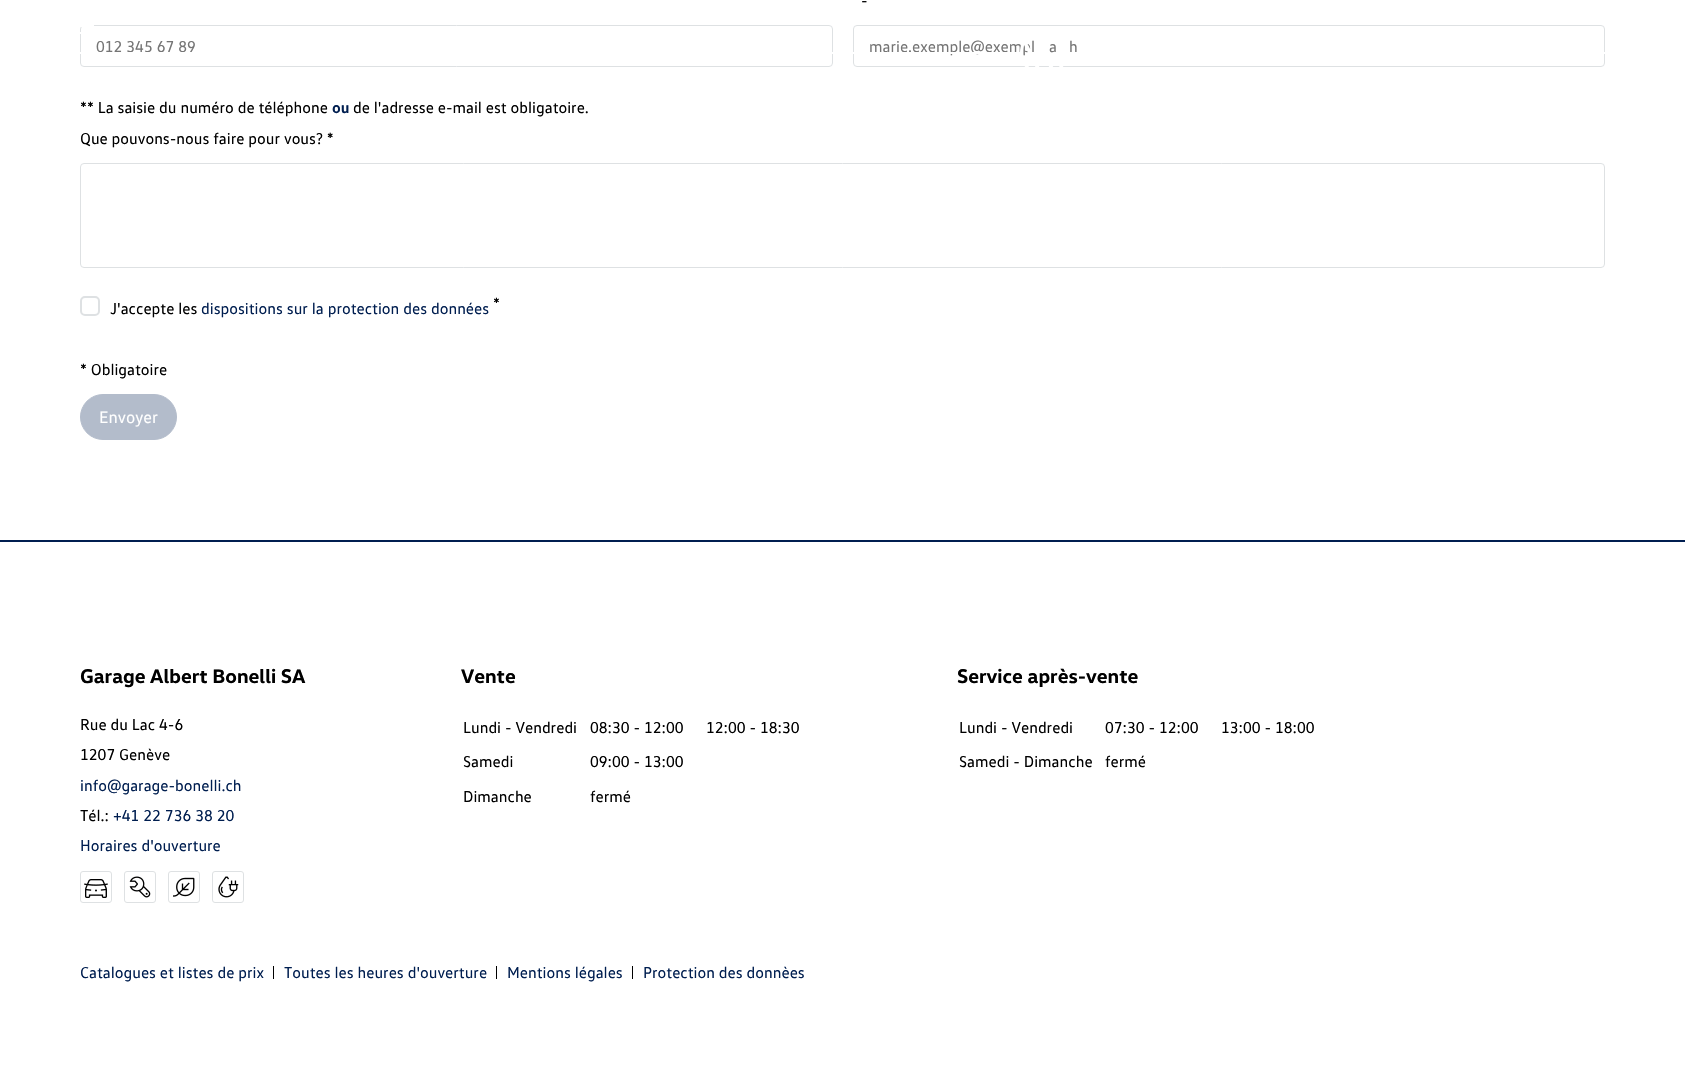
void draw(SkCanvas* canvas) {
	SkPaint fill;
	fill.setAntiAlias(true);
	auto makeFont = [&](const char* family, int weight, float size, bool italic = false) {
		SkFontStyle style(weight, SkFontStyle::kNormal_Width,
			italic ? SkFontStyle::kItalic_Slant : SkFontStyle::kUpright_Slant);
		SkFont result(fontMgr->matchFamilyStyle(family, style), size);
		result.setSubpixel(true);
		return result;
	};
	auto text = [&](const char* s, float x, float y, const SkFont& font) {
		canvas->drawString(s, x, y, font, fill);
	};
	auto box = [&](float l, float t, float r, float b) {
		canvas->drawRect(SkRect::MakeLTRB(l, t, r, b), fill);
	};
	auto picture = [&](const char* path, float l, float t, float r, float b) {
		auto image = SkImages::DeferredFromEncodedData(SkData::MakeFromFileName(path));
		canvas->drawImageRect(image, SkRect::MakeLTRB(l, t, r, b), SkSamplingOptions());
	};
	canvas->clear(0xFFFFFFFF);
	fill.setStyle(SkPaint::kStroke_Style);
	fill.setStrokeWidth(1);
	fill.setColor(0xFFDEE1E3);
	canvas->drawRoundRect(SkRect::MakeLTRB(80.5f, 25.5f, 832.5f, 66.5f), 3.5f, 3.5f, fill);
	canvas->drawRoundRect(SkRect::MakeLTRB(853.5f, 25.5f, 1604.5f, 66.5f), 3.5f, 3.5f, fill);
	canvas->drawRoundRect(SkRect::MakeLTRB(80.5f, 163.5f, 1604.5f, 267.5f), 3.5f, 3.5f, fill);
	fill.setStrokeWidth(2);
	canvas->drawRoundRect(SkRect::MakeLTRB(81, 297, 99, 315), 4, 4, fill);
	fill.setStyle(SkPaint::kFill_Style);
	fill.setColor(0xFFB3BCCB);
	canvas->drawRoundRect(SkRect::MakeLTRB(80.5f, 394.5f, 176.5f, 439.5f), 22.5f, 22.5f, fill);
	fill.setStyle(SkPaint::kStroke_Style);
	fill.setStrokeWidth(1);
	canvas->drawRoundRect(SkRect::MakeLTRB(80.5f, 394.5f, 176.5f, 439.5f), 22.5f, 22.5f, fill);
	picture("image0.png", 80, 25, 94, 34);
	fill.setStyle(SkPaint::kFill_Style);
	fill.setColor(0xFFFFFFFF);
	box(1604, 52, 1605, 54);
	fill.setColor(0xFF001E50);
	box(0, 540, 1685, 542);
	picture("image2.png", 84, 879, 108, 898);
	fill.setStyle(SkPaint::kStroke_Style);
	fill.setColor(0xFFDEE1E3);
	canvas->drawRoundRect(SkRect::MakeLTRB(80.5f, 871.5f, 111.5f, 902.5f), 2.5f, 2.5f, fill);
	picture("image3.png", 129, 876, 151, 898);
	canvas->drawRoundRect(SkRect::MakeLTRB(124.5f, 871.5f, 155.5f, 902.5f), 2.5f, 2.5f, fill);
	picture("image4.png", 173, 877, 195, 897);
	canvas->drawRoundRect(SkRect::MakeLTRB(168.5f, 871.5f, 199.5f, 902.5f), 2.5f, 2.5f, fill);
	picture("image5.png", 218, 876, 239, 898);
	canvas->drawRoundRect(SkRect::MakeLTRB(212.5f, 871.5f, 243.5f, 902.5f), 2.5f, 2.5f, fill);
	fill.setStyle(SkPaint::kFill_Style);
	fill.setColor(0xFF000000);
	box(273, 966, 274, 979);
	box(496, 966, 497, 979);
	box(632, 966, 633, 979);
	auto font1 = makeFont("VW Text", 400, 16);
	fill.setColor(0xFF757575);
	text("012 345 67 89", 96, 52, font1);
	fill.setColor(0xFF000000);
	text("-", 861, 6, font1);
	fill.setColor(0xFF757575);
	text("marie.exemple@exempl", 869, 52, font1);
	text("a", 1049, 52, font1);
	text("h", 1069, 52, font1);
	fill.setColor(0xFF000000);
	text("** La saisie du numéro de téléphone", 80, 113, font1);
	auto font2 = makeFont("VW Text", 700, 16);
	fill.setColor(0xFF001E50);
	text("ou", 332, 113, font2);
	fill.setColor(0xFF000000);
	text("de l'adresse e-mail est obligatoire.", 353, 113, font1);
	text("Que pouvons-nous faire pour vous? *", 80, 144, font1);
	text("*", 493, 309, font1);
	text("J'accepte les", 110, 314, font1);
	fill.setColor(0xFF001E50);
	text("dispositions sur la protection des données", 201, 314, font1);
	fill.setColor(0xFF000000);
	text("* Obligatoire", 80, 375, font1);
	auto font3 = makeFont("VW Text", 400, 17);
	fill.setColor(0xFFFFFFFF);
	text("Envoyer", 99, 423, font3);
	box(80, 52, 1008, 54);
	picture("image1.png", 1020, 44, 1068, 67);
	auto font4 = makeFont("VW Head", 700, 20);
	fill.setColor(0xFF000000);
	text("Garage Albert Bonelli SA", 80, 683, font4);
	text("Rue du Lac 4-6", 80, 730, font1);
	text("1207 Genève", 80, 760, font1);
	fill.setColor(0xFF001E50);
	text("info@garage-bonelli.ch", 80, 791, font1);
	fill.setColor(0xFF000000);
	text("Tél.:", 80, 821, font1);
	fill.setColor(0xFF001E50);
	text("+41 22 736 38 20", 113, 821, font1);
	text("Horaires d'ouverture", 80, 851, font1);
	fill.setColor(0xFF000000);
	text("Vente", 461, 683, font4);
	text("Lundi - Vendredi", 463, 733, font1);
	text("08:30 - 12:00", 590, 733, font1);
	text("12:00 - 18:30", 706, 733, font1);
	text("Samedi", 463, 767, font1);
	text("09:00 - 13:00", 590, 767, font1);
	text("Dimanche", 463, 802, font1);
	text("fermé", 590, 802, font1);
	text("Service après-vente", 957, 683, font4);
	text("Lundi - Vendredi", 959, 733, font1);
	text("07:30 - 12:00", 1105, 733, font1);
	text("13:00 - 18:00", 1221, 733, font1);
	text("Samedi - Dimanche", 959, 767, font1);
	text("fermé", 1105, 767, font1);
	fill.setColor(0xFF001E50);
	text("Catalogues et listes de prix", 80, 978, font1);
	text("Toutes les heures d'ouverture", 284, 978, font1);
	text("Mentions légales", 507, 978, font1);
	text("Protection des donnèes", 643, 978, font1);
}
